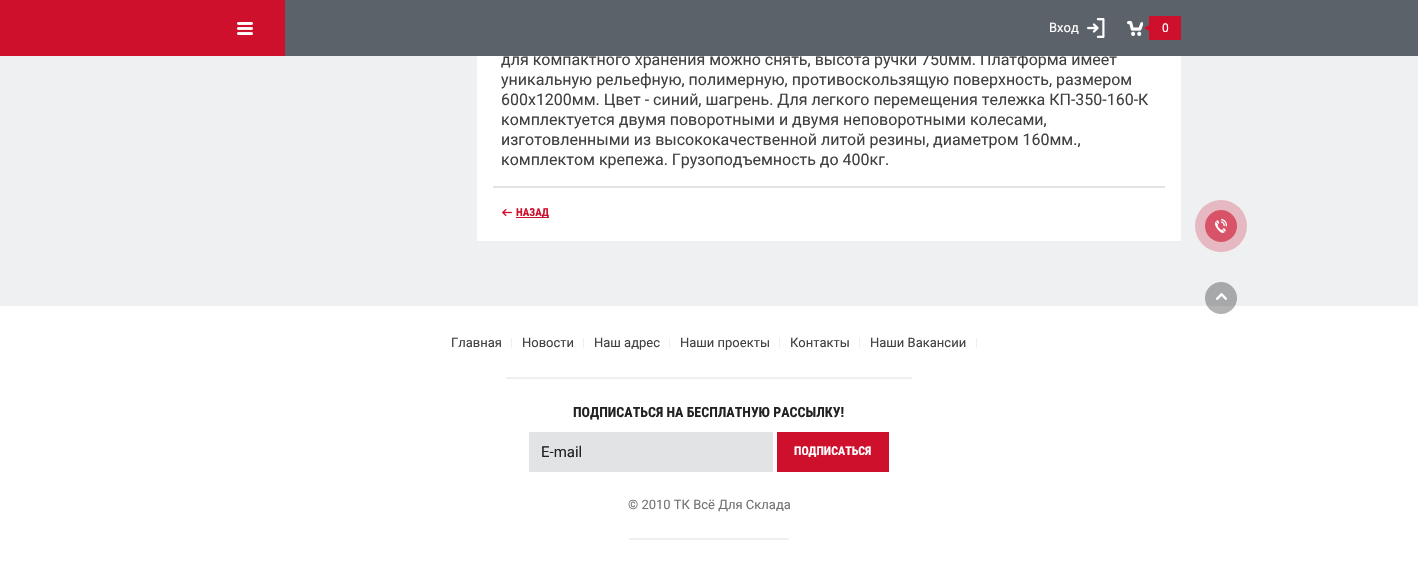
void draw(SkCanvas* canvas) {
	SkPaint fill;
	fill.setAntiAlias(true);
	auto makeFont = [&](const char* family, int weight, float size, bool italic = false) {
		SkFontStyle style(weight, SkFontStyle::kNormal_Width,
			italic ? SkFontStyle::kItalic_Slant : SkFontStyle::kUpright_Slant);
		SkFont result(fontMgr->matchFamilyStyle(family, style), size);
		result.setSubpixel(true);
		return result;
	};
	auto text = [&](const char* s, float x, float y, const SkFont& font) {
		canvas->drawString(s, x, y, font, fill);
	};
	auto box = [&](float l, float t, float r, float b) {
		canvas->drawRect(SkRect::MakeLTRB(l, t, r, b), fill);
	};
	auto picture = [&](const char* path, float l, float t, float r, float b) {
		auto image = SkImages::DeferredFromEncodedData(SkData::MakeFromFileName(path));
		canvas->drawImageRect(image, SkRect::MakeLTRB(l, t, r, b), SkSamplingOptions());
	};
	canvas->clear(0xFFEEF0F2);
	fill.setColor(0xFFCF102D);
	box(0, 0, 285, 56);
	picture("image0.png", 237, 22, 253, 35);
	fill.setColor(0xFFFFFFFF);
	box(477, 56, 1181, 241);
	fill.setColor(0xFFE1E3E5);
	box(493, 186, 1165, 188);
	picture("image3.png", 502, 209, 512, 216);
	fill.setColor(0xFFCF102D);
	box(516, 217, 549, 218);
	fill.setColor(0xFFE6B8C1);
	canvas->drawCircle(1221, 226, 26, fill);
	fill.setColor(0xFFD85368);
	canvas->drawCircle(1221, 226, 16, fill);
	picture("image4.png", 1215, 219, 1227, 233);
	fill.setColor(0xFFFFFFFF);
	box(0, 306, 1418, 564);
	fill.setColor(0x4D000000);
	canvas->drawCircle(1221, 298, 16, fill);
	picture("image5.png", 1216, 293, 1227, 300);
	fill.setColor(0xFFEEF0F2);
	box(511, 338, 512, 348);
	box(583, 338, 584, 348);
	box(669, 338, 670, 348);
	box(779, 338, 780, 348);
	box(859, 338, 860, 348);
	box(976, 338, 977, 348);
	box(506, 377, 912, 379);
	fill.setColor(0xFFE1E3E5);
	box(529, 432, 773, 472);
	fill.setColor(0xFFCF102D);
	box(777, 432, 889, 472);
	fill.setColor(0xFFEEF0F2);
	box(629, 538, 789, 540);
	auto font1 = makeFont("Roboto", 400, 16);
	fill.setColor(0xFF404040);
	text("для компактного хранения можно снять, высота ручки 750мм. Платформа имеет", 501, 65, font1);
	fill.setColor(0xFF5B626A);
	box(285, 0, 1418, 56);
	fill.setColor(0xFFCF102D);
	canvas->drawPath(SkPathBuilder().moveTo(1149, 25).lineTo(1149, 31).lineTo(1144, 28).close().detach(), fill);
	box(1149, 16, 1181, 40);
	auto font2 = makeFont("Roboto", 400, 12);
	fill.setColor(0xFFFFFFFF);
	text("0", 1162, 32, font2);
	picture("image2.png", 1127, 21, 1143, 36);
	auto font3 = makeFont("Roboto", 400, 13);
	text("Вход", 1049, 32, font3);
	picture("image1.png", 1087, 18, 1105, 38);
	fill.setColor(0xFF404040);
	text("уникальную рельефную, полимерную, противоскользящую поверхность, размером", 501, 85, font1);
	text("600х1200мм. Цвет - синий, шагрень. Для легкого перемещения тележка КП-350-160-К", 501, 105, font1);
	text("комплектуется двумя поворотными и двумя неповоротными колесами,", 501, 125, font1);
	text("изготовленными из высококачественной литой резины, диаметром 160мм.,", 501, 145, font1);
	text("комплектом крепежа. Грузоподъемность до 400кг.", 501, 165, font1);
	auto font4 = makeFont("Roboto Condensed", 700, 11);
	fill.setColor(0xFFCF102D);
	text("НАЗАД", 516, 216, font4);
	fill.setColor(0xFF404040);
	text("Главная", 451, 347, font3);
	text("Новости", 522, 347, font3);
	text("Наш адрес", 594, 347, font3);
	text("Наши проекты", 680, 347, font3);
	text("Контакты", 790, 347, font3);
	text("Наши Вакансии", 870, 347, font3);
	auto font5 = makeFont("Roboto Condensed", 700, 14);
	fill.setColor(0xFF222222);
	text("ПОДПИСАТЬСЯ НА БЕСПЛАТНУЮ РАССЫЛКУ!", 573, 417, font5);
	auto font6 = makeFont("Roboto", 400, 15);
	text("E-mail", 541, 457, font6);
	auto font7 = makeFont("Roboto Condensed", 700, 12);
	fill.setColor(0xFFFFFFFF);
	text("ПОДПИСАТЬСЯ", 794, 455, font7);
	fill.setColor(0xFF737373);
	text("© 2010 ТК Всё Для Склада", 628, 509, font3);
}
